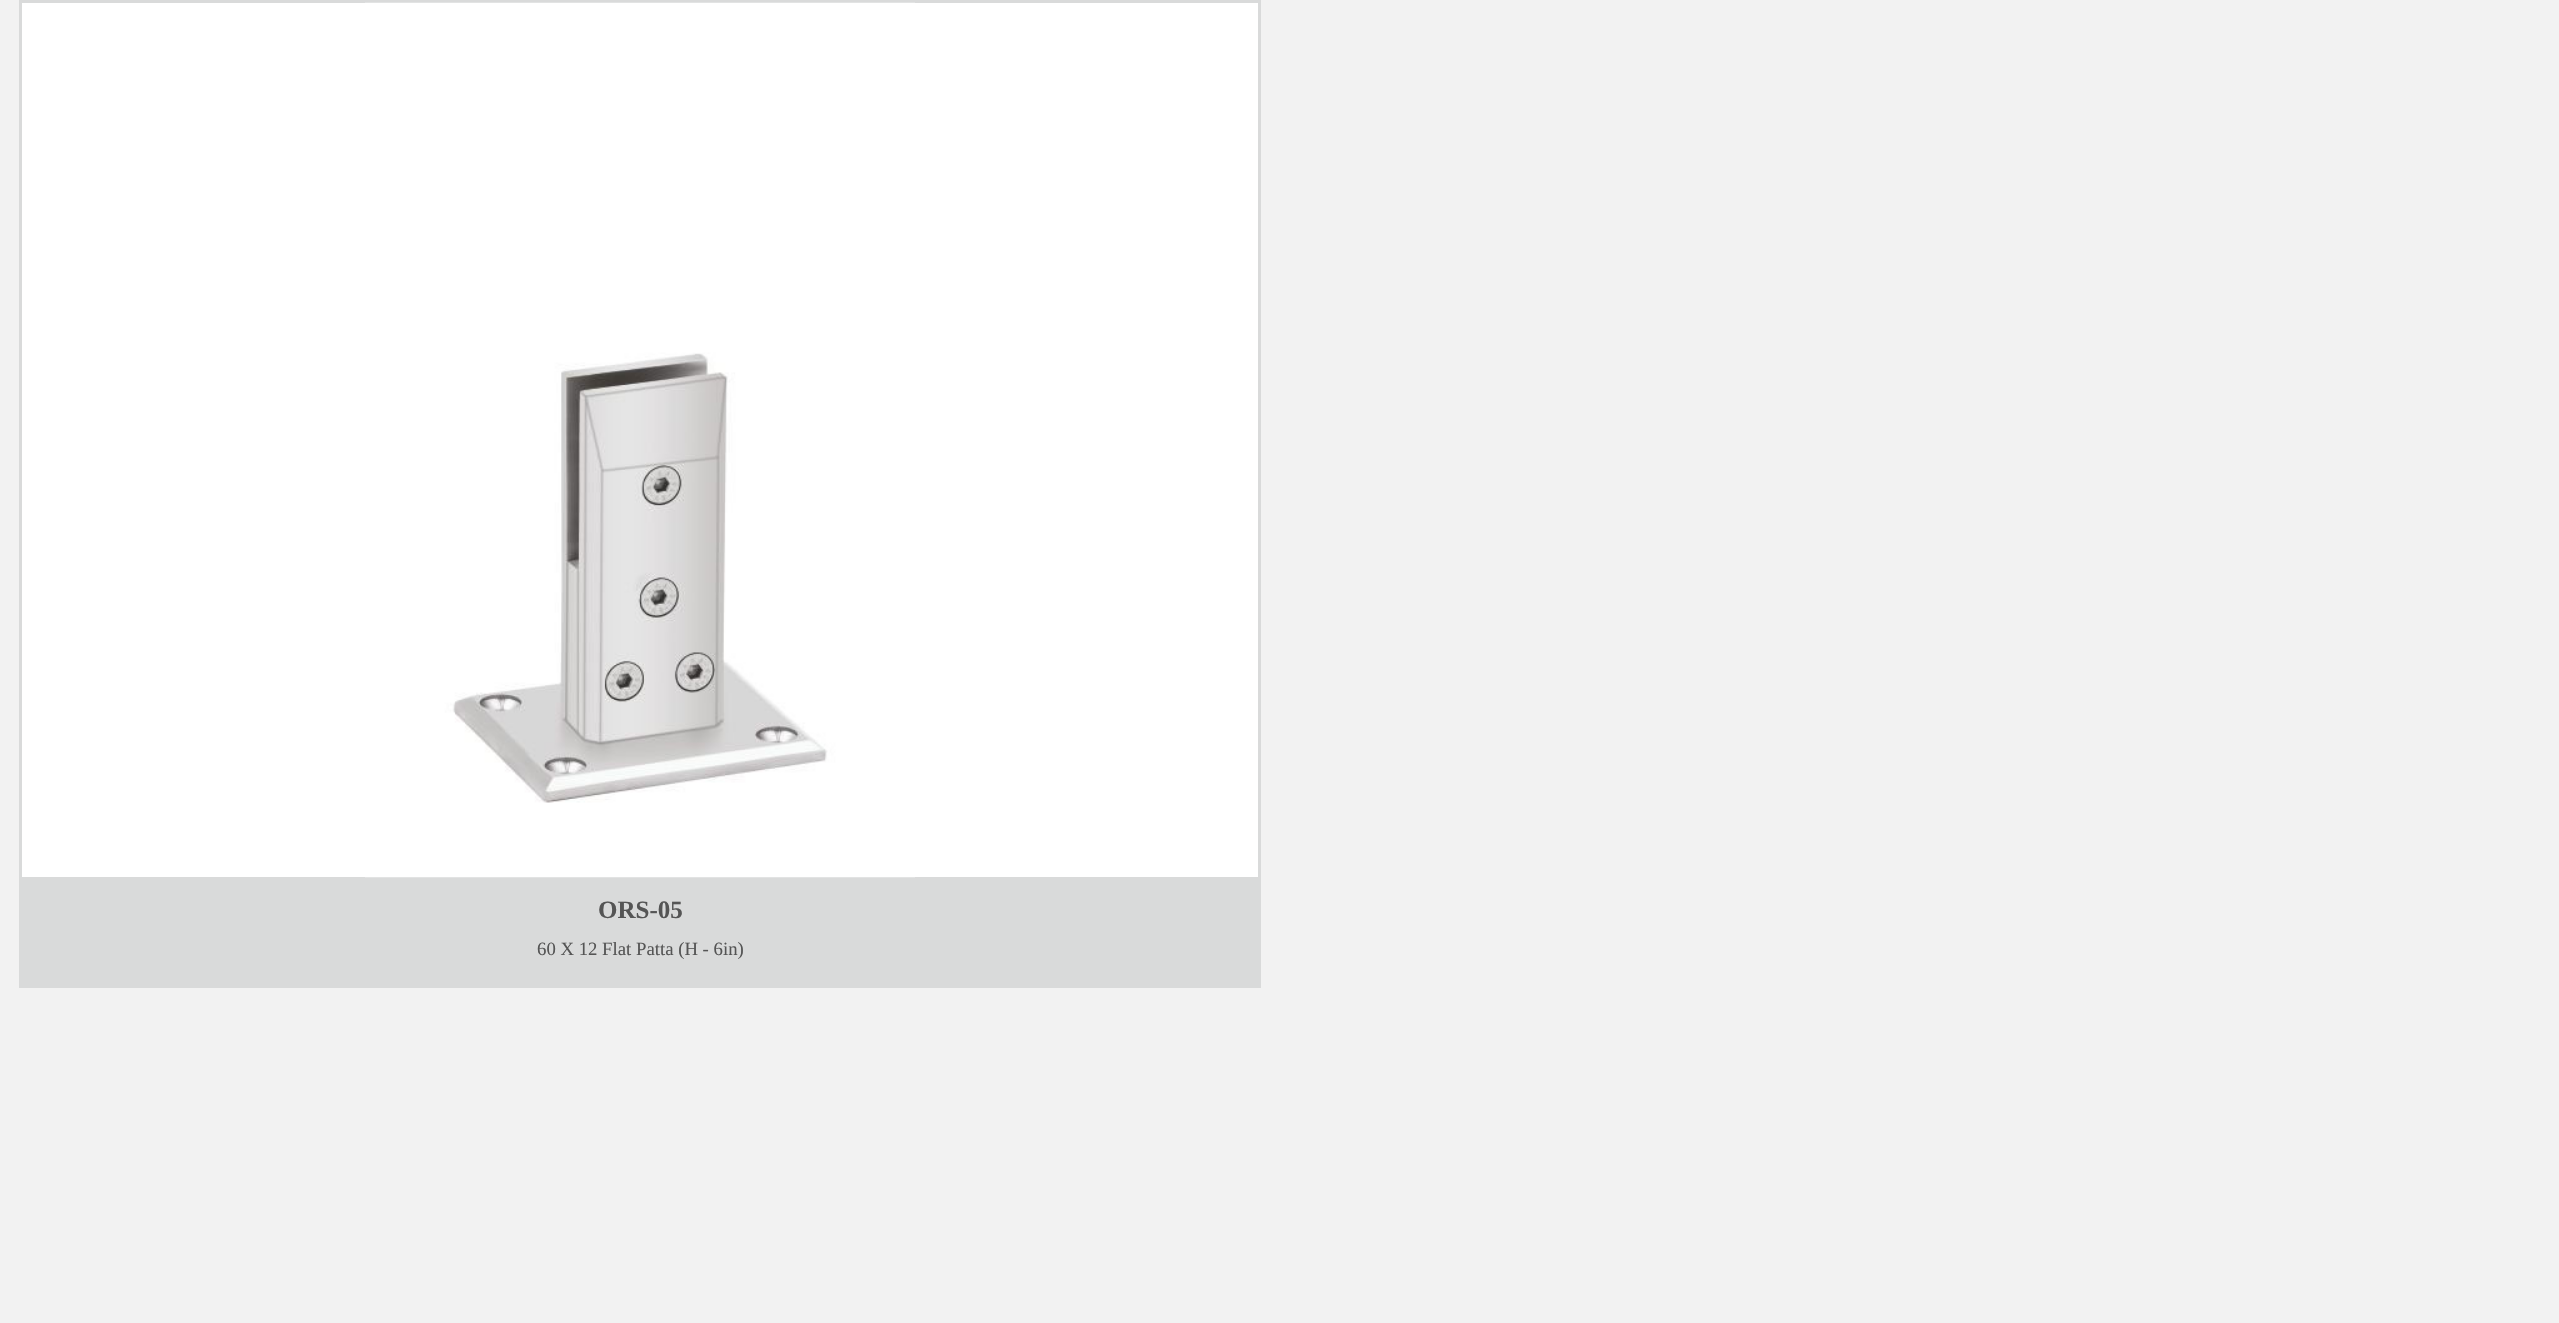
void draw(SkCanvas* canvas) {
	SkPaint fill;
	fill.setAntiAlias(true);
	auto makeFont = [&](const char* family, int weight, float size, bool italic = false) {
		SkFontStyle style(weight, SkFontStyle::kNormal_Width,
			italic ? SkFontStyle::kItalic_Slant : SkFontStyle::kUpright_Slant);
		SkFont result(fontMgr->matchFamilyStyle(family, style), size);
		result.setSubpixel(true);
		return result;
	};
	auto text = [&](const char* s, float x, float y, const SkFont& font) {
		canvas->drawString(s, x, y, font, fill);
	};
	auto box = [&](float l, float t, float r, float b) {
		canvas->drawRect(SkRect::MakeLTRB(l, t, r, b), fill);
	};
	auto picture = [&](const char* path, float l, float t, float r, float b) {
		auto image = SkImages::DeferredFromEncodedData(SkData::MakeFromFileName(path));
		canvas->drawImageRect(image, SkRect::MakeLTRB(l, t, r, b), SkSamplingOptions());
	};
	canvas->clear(0xFFF2F2F2);
	fill.setColor(0xFFFFFFFF);
	canvas->drawRect(SkRect::MakeLTRB(20.5f, 1.5f, 1259.5f, 878.5f), fill);
	fill.setStyle(SkPaint::kStroke_Style);
	fill.setStrokeWidth(3);
	fill.setColor(0xFFD9DADA);
	canvas->drawRect(SkRect::MakeLTRB(20.5f, 1.5f, 1259.5f, 878.5f), fill);
	picture("image0.png", 365, 2, 915, 878);
	fill.setStyle(SkPaint::kFill_Style);
	box(19, 880, 1261, 988);
	auto font1 = makeFont("Liberation Serif", 700, 25);
	fill.setColor(0xFF555555);
	text("ORS-05", 598, 918, font1);
	auto font2 = makeFont("Liberation Serif", 400, 18.75f);
	text("60 X 12 Flat Patta (H - 6in)", 537, 955, font2);
}
